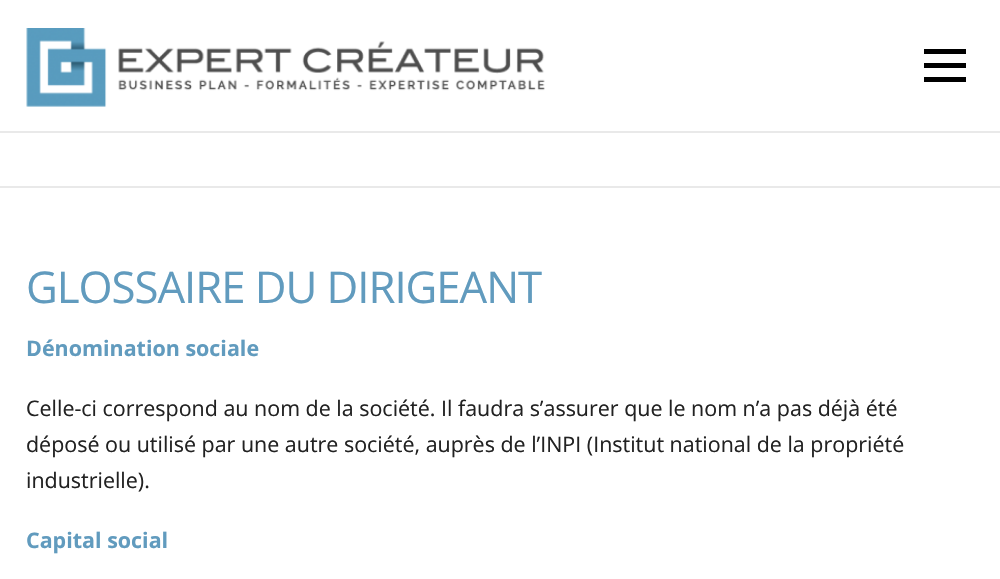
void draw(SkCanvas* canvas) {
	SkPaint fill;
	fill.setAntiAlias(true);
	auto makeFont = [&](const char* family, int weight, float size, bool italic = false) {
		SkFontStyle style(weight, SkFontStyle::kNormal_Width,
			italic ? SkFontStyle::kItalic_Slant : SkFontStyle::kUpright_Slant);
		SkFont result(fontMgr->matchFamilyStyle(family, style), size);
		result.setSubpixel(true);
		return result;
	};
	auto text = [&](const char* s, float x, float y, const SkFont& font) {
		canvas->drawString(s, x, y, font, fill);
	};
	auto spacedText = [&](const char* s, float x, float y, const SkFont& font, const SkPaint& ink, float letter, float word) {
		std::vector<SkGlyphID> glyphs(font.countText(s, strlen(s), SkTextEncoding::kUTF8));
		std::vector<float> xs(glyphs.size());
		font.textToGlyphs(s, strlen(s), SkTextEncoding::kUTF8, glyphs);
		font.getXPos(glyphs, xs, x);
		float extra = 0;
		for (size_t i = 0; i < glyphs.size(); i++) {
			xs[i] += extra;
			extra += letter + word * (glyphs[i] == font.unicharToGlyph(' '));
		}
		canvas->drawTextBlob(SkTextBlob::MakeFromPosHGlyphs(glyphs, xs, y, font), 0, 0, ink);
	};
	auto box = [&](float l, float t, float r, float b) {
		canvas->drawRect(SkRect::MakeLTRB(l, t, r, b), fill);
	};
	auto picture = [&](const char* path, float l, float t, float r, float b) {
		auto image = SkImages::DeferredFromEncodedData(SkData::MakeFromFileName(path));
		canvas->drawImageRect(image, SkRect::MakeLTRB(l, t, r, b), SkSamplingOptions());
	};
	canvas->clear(0xFFFFFFFF);
	picture("image0.png", 26, 28, 545, 107);
	fill.setColor(0xFF000000);
	box(924, 63, 966, 68);
	box(924, 49, 966, 54);
	box(924, 77, 966, 82);
	fill.setColor(0xFFE9E9E9);
	box(0, 131, 1000, 133);
	box(0, 186, 1000, 188);
	auto font1 = makeFont("Open Sans", 400, 43.75f);
	fill.setColor(0xFF619BBE);
	spacedText("GLOSSAIRE DU DIRIGEANT", 26, 303, font1, fill, -1.05f, 0);
	auto font2 = makeFont("Open Sans", 700, 21.45f);
	text("Dénomination sociale", 26, 356, font2);
	auto font3 = makeFont("Open Sans", 400, 21.45f);
	fill.setColor(0xFF222222);
	text("Celle-ci correspond au nom de la société. Il faudra s’assurer que le nom n’a pas déjà été", 26, 416, font3);
	text("déposé ou utilisé par une autre société, auprès de l’INPI (Institut national de la propriété", 26, 452, font3);
	text("industrielle).", 26, 488, font3);
	fill.setColor(0xFF619BBE);
	text("Capital social", 26, 548, font2);
}
